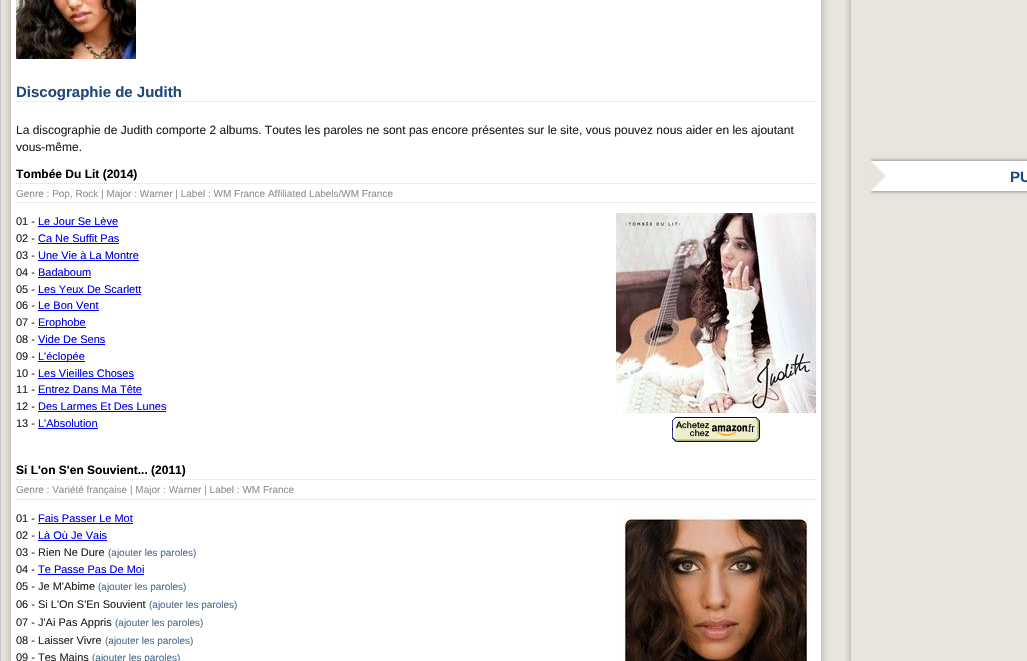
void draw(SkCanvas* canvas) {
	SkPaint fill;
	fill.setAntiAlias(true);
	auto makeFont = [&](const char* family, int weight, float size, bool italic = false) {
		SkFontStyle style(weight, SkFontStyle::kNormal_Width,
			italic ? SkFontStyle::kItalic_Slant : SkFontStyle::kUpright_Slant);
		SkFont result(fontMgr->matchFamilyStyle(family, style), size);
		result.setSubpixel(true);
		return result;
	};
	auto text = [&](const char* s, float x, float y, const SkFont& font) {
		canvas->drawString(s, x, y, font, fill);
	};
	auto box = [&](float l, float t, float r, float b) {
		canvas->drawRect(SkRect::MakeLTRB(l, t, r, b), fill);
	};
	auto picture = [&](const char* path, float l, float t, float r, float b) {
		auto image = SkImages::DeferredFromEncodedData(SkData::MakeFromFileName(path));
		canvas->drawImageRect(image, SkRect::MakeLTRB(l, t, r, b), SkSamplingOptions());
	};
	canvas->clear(0xFFE8E5DE);
	fill.setColor(0xFFC5C5C5);
	box(0, 0, 1, 661);
	fill.setColor(0x4D000000);
	fill.setMaskFilter(SkMaskFilter::MakeBlur(kNormal_SkBlurStyle, 4));
	canvas->drawRoundRect(SkRect::MakeLTRB(11, -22, 821, 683), 10, 10, fill);
	fill.setMaskFilter(nullptr);
	fill.setColor(0xFFFFFFFF);
	box(11, 0, 821, 661);
	picture("image0.png", 16, 0, 136, 59);
	fill.setStyle(SkPaint::kStroke_Style);
	fill.setStrokeWidth(1);
	fill.setColor(0xFFDADADA);
	fill.setPathEffect(SkDashPathEffect::Make({{1, 1}}, 0));
	canvas->drawPath(SkPathBuilder().moveTo(16, 101.5f).lineTo(816, 101.5f).detach(), fill);
	fill.setPathEffect(nullptr);
	fill.setPathEffect(SkDashPathEffect::Make({{1, 1}}, 0));
	canvas->drawPath(SkPathBuilder().moveTo(16, 183.5f).lineTo(816, 183.5f).detach(), fill);
	fill.setPathEffect(nullptr);
	fill.setPathEffect(SkDashPathEffect::Make({{1, 1}}, 0));
	canvas->drawPath(SkPathBuilder().moveTo(16, 202.5f).lineTo(816, 202.5f).detach(), fill);
	fill.setPathEffect(nullptr);
	fill.setStyle(SkPaint::kFill_Style);
	fill.setColor(0xFF0000EE);
	box(38, 226, 118, 227);
	box(38, 243, 119, 244);
	box(38, 260, 139, 261);
	box(38, 277, 91, 278);
	box(38, 294, 141, 295);
	box(38, 310, 99, 311);
	box(38, 327, 86, 328);
	box(38, 344, 105, 345);
	box(38, 361, 85, 362);
	box(38, 378, 134, 379);
	box(38, 394, 142, 395);
	box(38, 411, 166, 412);
	box(38, 428, 98, 429);
	picture("image1.png", 616, 213, 816, 413);
	picture("image2.png", 672, 417, 760, 442);
	fill.setStyle(SkPaint::kStroke_Style);
	fill.setColor(0xFFDADADA);
	fill.setPathEffect(SkDashPathEffect::Make({{1, 1}}, 0));
	canvas->drawPath(SkPathBuilder().moveTo(16, 479.5f).lineTo(816, 479.5f).detach(), fill);
	fill.setPathEffect(nullptr);
	fill.setPathEffect(SkDashPathEffect::Make({{1, 1}}, 0));
	canvas->drawPath(SkPathBuilder().moveTo(16, 499.5f).lineTo(816, 499.5f).detach(), fill);
	fill.setPathEffect(nullptr);
	fill.setStyle(SkPaint::kFill_Style);
	fill.setColor(0xFF0000EE);
	box(38, 523, 133, 524);
	box(38, 540, 107, 541);
	box(38, 574, 144, 575);
	picture("image3.png", 616, 510, 808, 661);
	canvas->save();
	canvas->clipRect(SkRect::MakeLTRB(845, 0, 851, 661));
	fill.setColor(0x4D000000);
	fill.setMaskFilter(SkMaskFilter::MakeBlur(kNormal_SkBlurStyle, 4));
	canvas->drawRoundRect(SkRect::MakeLTRB(851, -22, 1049, 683), 10, 10, fill);
	fill.setMaskFilter(nullptr);
	canvas->restore();
	fill.setColor(0x8C000000);
	fill.setMaskFilter(SkMaskFilter::MakeBlur(kNormal_SkBlurStyle, 2));
	canvas->drawRect(SkRect::MakeLTRB(871, 161, 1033, 191), fill);
	fill.setMaskFilter(nullptr);
	fill.setColor(0xFFFFFFFF);
	box(871, 161, 1027, 191);
	fill.setColor(0xFFE8E5DE);
	canvas->drawPath(SkPathBuilder().moveTo(866, 196).lineTo(866, 156).lineTo(886, 176).close().detach(), fill);
	auto font1 = makeFont("Liberation Sans", 700, 15);
	fill.setColor(0xFF1F497D);
	text("Discographie de Judith", 16, 97, font1);
	auto font2 = makeFont("Liberation Sans", 400, 12);
	fill.setColor(0xFF222222);
	text("La discographie de Judith comporte 2 albums. Toutes les paroles ne sont pas encore présentes sur le site, vous pouvez nous aider en les ajoutant", 16, 134, font2);
	text("vous-même.", 16, 151, font2);
	auto font3 = makeFont("Liberation Sans", 700, 12);
	fill.setColor(0xFF000000);
	text("Tombée Du Lit (2014)", 16, 178, font3);
	auto font4 = makeFont("Liberation Sans", 400, 10);
	fill.setColor(0xFF919191);
	text("Genre : Pop, Rock | Major : Warner | Label : WM France Affiliated Labels/WM France", 16, 197, font4);
	auto font5 = makeFont("Liberation Sans", 400, 11);
	fill.setColor(0xFF222222);
	text("01 -", 16, 225, font5);
	fill.setColor(0xFF0000EE);
	text("Le Jour Se Lève", 38, 225, font5);
	fill.setColor(0xFF222222);
	text("02 -", 16, 242, font5);
	fill.setColor(0xFF0000EE);
	text("Ca Ne Suffit Pas", 38, 242, font5);
	fill.setColor(0xFF222222);
	text("03 -", 16, 259, font5);
	fill.setColor(0xFF0000EE);
	text("Une Vie à La Montre", 38, 259, font5);
	fill.setColor(0xFF222222);
	text("04 -", 16, 276, font5);
	fill.setColor(0xFF0000EE);
	text("Badaboum", 38, 276, font5);
	fill.setColor(0xFF222222);
	text("05 -", 16, 293, font5);
	fill.setColor(0xFF0000EE);
	text("Les Yeux De Scarlett", 38, 293, font5);
	fill.setColor(0xFF222222);
	text("06 -", 16, 309, font5);
	fill.setColor(0xFF0000EE);
	text("Le Bon Vent", 38, 309, font5);
	fill.setColor(0xFF222222);
	text("07 -", 16, 326, font5);
	fill.setColor(0xFF0000EE);
	text("Erophobe", 38, 326, font5);
	fill.setColor(0xFF222222);
	text("08 -", 16, 343, font5);
	fill.setColor(0xFF0000EE);
	text("Vide De Sens", 38, 343, font5);
	fill.setColor(0xFF222222);
	text("09 -", 16, 360, font5);
	fill.setColor(0xFF0000EE);
	text("L'éclopée", 38, 360, font5);
	fill.setColor(0xFF222222);
	text("10 -", 16, 377, font5);
	fill.setColor(0xFF0000EE);
	text("Les Vieilles Choses", 38, 377, font5);
	fill.setColor(0xFF222222);
	text("11 -", 16, 393, font5);
	fill.setColor(0xFF0000EE);
	text("Entrez Dans Ma Tête", 38, 393, font5);
	fill.setColor(0xFF222222);
	text("12 -", 16, 410, font5);
	fill.setColor(0xFF0000EE);
	text("Des Larmes Et Des Lunes", 38, 410, font5);
	fill.setColor(0xFF222222);
	text("13 -", 16, 427, font5);
	fill.setColor(0xFF0000EE);
	text("L'Absolution", 38, 427, font5);
	fill.setColor(0xFF000000);
	text("Si L'on S'en Souvient... (2011)", 16, 474, font3);
	fill.setColor(0xFF919191);
	text("Genre : Variété française | Major : Warner | Label : WM France", 16, 493, font4);
	fill.setColor(0xFF222222);
	text("01 -", 16, 522, font5);
	fill.setColor(0xFF0000EE);
	text("Fais Passer Le Mot", 38, 522, font5);
	fill.setColor(0xFF222222);
	text("02 -", 16, 539, font5);
	fill.setColor(0xFF0000EE);
	text("Là Où Je Vais", 38, 539, font5);
	fill.setColor(0xFF222222);
	text("03 - Rien Ne Dure", 16, 556, font5);
	fill.setColor(0xFF506C8D);
	text("(ajouter les paroles)", 108, 556, font4);
	fill.setColor(0xFF222222);
	text("04 -", 16, 573, font5);
	fill.setColor(0xFF0000EE);
	text("Te Passe Pas De Moi", 38, 573, font5);
	fill.setColor(0xFF222222);
	text("05 - Je M'Abime", 16, 590, font5);
	fill.setColor(0xFF506C8D);
	text("(ajouter les paroles)", 98, 590, font4);
	fill.setColor(0xFF222222);
	text("06 - Si L'On S'En Souvient", 16, 608, font5);
	fill.setColor(0xFF506C8D);
	text("(ajouter les paroles)", 149, 608, font4);
	fill.setColor(0xFF222222);
	text("07 - J'Ai Pas Appris", 16, 626, font5);
	fill.setColor(0xFF506C8D);
	text("(ajouter les paroles)", 115, 626, font4);
	fill.setColor(0xFF222222);
	text("08 - Laisser Vivre", 16, 644, font5);
	fill.setColor(0xFF506C8D);
	text("(ajouter les paroles)", 105, 644, font4);
	fill.setColor(0xFF222222);
	text("09 - Tes Mains", 16, 661, font5);
	fill.setColor(0xFF506C8D);
	text("(ajouter les paroles)", 92, 661, font4);
	fill.setColor(0xFF1F497D);
	text("PU", 1010, 182, font1);
}
